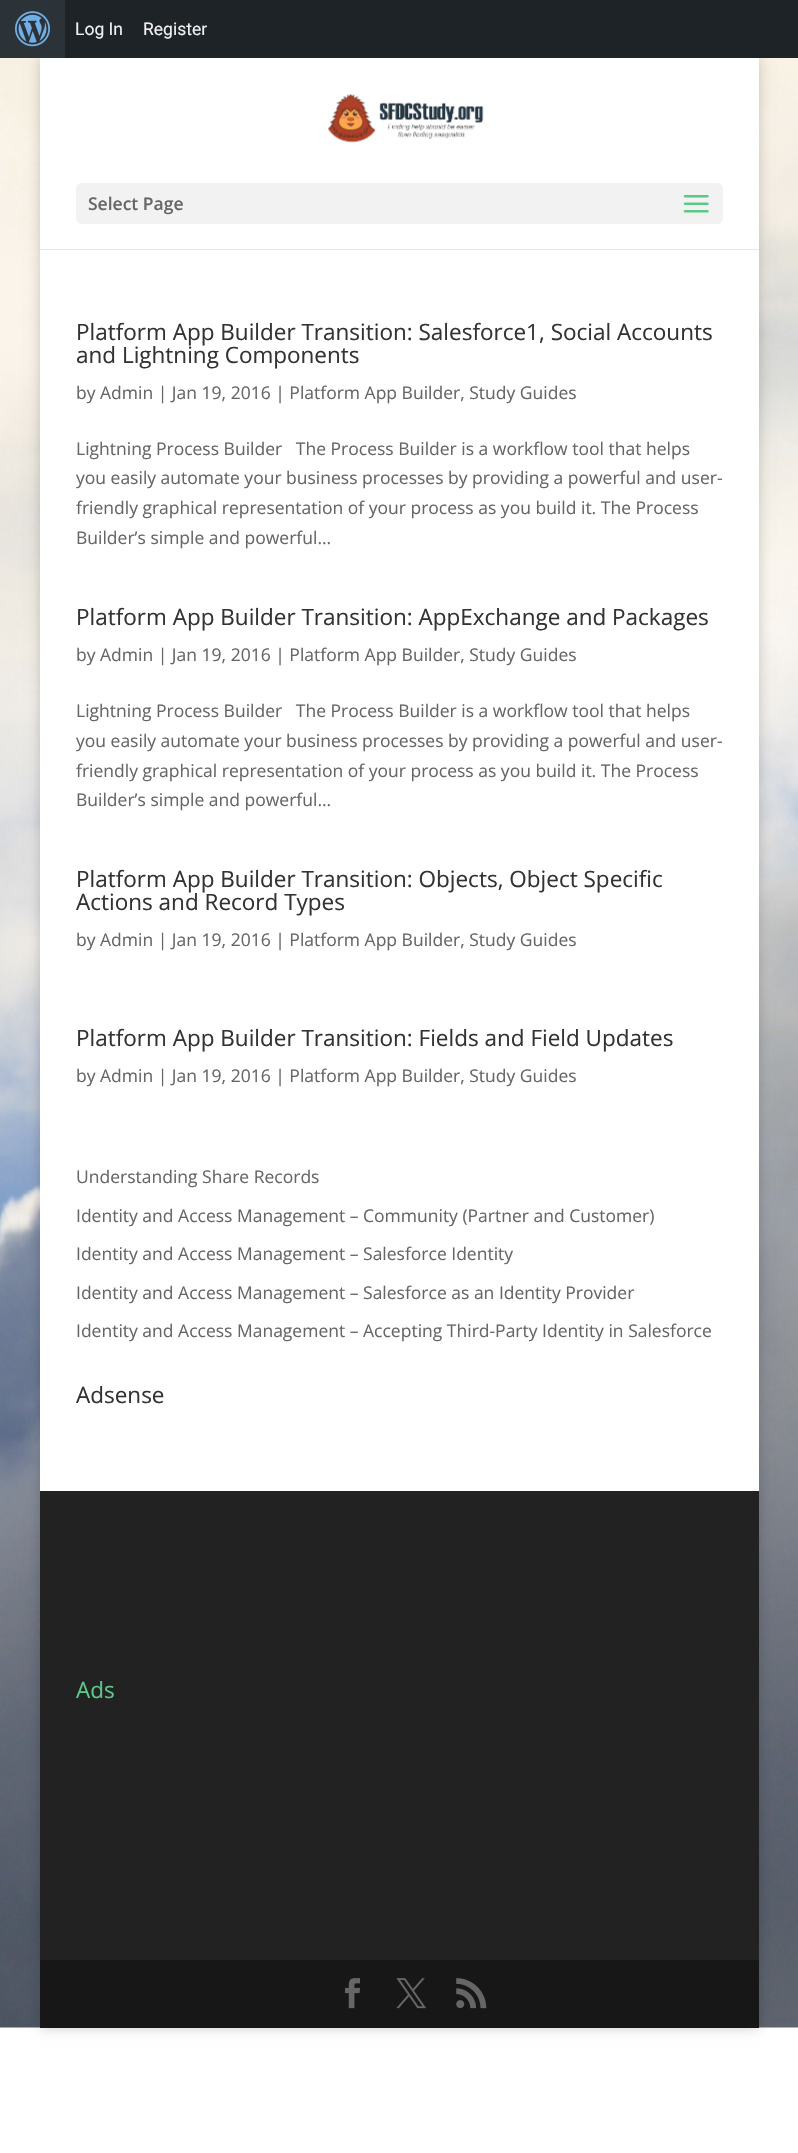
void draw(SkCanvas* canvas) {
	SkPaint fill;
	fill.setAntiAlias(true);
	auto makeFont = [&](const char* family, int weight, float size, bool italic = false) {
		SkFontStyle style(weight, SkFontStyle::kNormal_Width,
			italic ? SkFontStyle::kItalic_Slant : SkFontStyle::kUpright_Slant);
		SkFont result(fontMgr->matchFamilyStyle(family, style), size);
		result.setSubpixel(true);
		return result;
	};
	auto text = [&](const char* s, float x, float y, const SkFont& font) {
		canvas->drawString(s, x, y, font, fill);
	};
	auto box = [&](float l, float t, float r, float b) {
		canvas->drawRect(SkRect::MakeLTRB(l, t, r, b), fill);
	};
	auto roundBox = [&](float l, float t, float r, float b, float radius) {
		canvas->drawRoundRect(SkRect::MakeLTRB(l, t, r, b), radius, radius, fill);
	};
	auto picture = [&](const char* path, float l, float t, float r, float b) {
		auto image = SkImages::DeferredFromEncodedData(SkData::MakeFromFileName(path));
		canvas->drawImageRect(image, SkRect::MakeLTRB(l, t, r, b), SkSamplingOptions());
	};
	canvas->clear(0xFFFFFFFF);
	picture("image0.png", 0, 58, 798, 2028);
	fill.setColor(0x33000000);
	fill.setMaskFilter(SkMaskFilter::MakeBlur(kNormal_SkBlurStyle, 6));
	canvas->drawRect(SkRect::MakeLTRB(40, 58, 759, 2028), fill);
	fill.setMaskFilter(nullptr);
	fill.setColor(0xFF1D2327);
	box(65, 0, 798, 58);
	fill.setColor(0xFF2C3338);
	box(0, 0, 65, 58);
	picture("image1.png", 15, 11, 50, 47);
	fill.setColor(0xFFE6E6E6);
	canvas->drawPath(SkPathBuilder().moveTo(40, 249).lineTo(40, 250).lineTo(759, 250).lineTo(759, 59).lineTo(759, 249).close().detach(), fill);
	fill.setColor(0xFFFFFFFF);
	box(40, 58, 759, 249);
	picture("image2.png", 327, 94, 484, 143);
	fill.setColor(0xFFF2F2F2);
	roundBox(76, 183, 723, 224, 6);
	picture("image3.png", 683, 195, 709, 213);
	fill.setColor(0xFFFFFFFF);
	box(40, 250, 759, 1491);
	fill.setColor(0xFF222222);
	box(40, 1491, 759, 1960);
	fill.setColor(0xFF171717);
	box(40, 1960, 759, 2028);
	picture("image4.png", 345, 1978, 360, 2009);
	picture("image5.png", 396, 1978, 426, 2009);
	picture("image6.png", 456, 1978, 487, 2009);
	auto font1 = makeFont("Roboto", 400, 17.5f);
	fill.setColor(0xFFF0F0F1);
	text("Log In", 75, 35, font1);
	text("Register", 143, 35, font1);
	auto font2 = makeFont("Open Sans", 600, 17.5f);
	fill.setColor(0xFF666666);
	text("Select Page", 88, 210, font2);
	auto font3 = makeFont("Open Sans", 400, 22.5f);
	fill.setColor(0xFF333333);
	text("Platform App Builder Transition: Salesforce1, Social Accounts", 76, 340, font3);
	text("and Lightning Components", 76, 363, font3);
	auto font4 = makeFont("Open Sans", 400, 17.5f);
	fill.setColor(0xFF666666);
	text("by Admin | Jan 19, 2016 | Platform App Builder, Study Guides", 76, 399, font4);
	text("Lightning Process Builder   The Process Builder is a workflow tool that helps", 76, 455, font4);
	text("you easily automate your business processes by providing a powerful and user-", 76, 484, font4);
	text("friendly graphical representation of your process as you build it. The Process", 76, 514, font4);
	text("Builder’s simple and powerful...", 76, 544, font4);
	fill.setColor(0xFF333333);
	text("Platform App Builder Transition: AppExchange and Packages", 76, 625, font3);
	fill.setColor(0xFF666666);
	text("by Admin | Jan 19, 2016 | Platform App Builder, Study Guides", 76, 661, font4);
	text("Lightning Process Builder   The Process Builder is a workflow tool that helps", 76, 717, font4);
	text("you easily automate your business processes by providing a powerful and user-", 76, 747, font4);
	text("friendly graphical representation of your process as you build it. The Process", 76, 777, font4);
	text("Builder’s simple and powerful...", 76, 806, font4);
	fill.setColor(0xFF333333);
	text("Platform App Builder Transition: Objects, Object Specific", 76, 887, font3);
	text("Actions and Record Types", 76, 910, font3);
	fill.setColor(0xFF666666);
	text("by Admin | Jan 19, 2016 | Platform App Builder, Study Guides", 76, 946, font4);
	fill.setColor(0xFF333333);
	text("Platform App Builder Transition: Fields and Field Updates", 76, 1046, font3);
	fill.setColor(0xFF666666);
	text("by Admin | Jan 19, 2016 | Platform App Builder, Study Guides", 76, 1082, font4);
	text("Understanding Share Records", 76, 1183, font4);
	text("Identity and Access Management – Community (Partner and Customer)", 76, 1222, font4);
	text("Identity and Access Management – Salesforce Identity", 76, 1260, font4);
	text("Identity and Access Management – Salesforce as an Identity Provider", 76, 1299, font4);
	text("Identity and Access Management – Accepting Third-Party Identity in Salesforce", 76, 1337, font4);
	fill.setColor(0xFF333333);
	text("Adsense", 76, 1403, font3);
	fill.setColor(0xFF5DC989);
	text("Ads", 76, 1698, font3);
}
